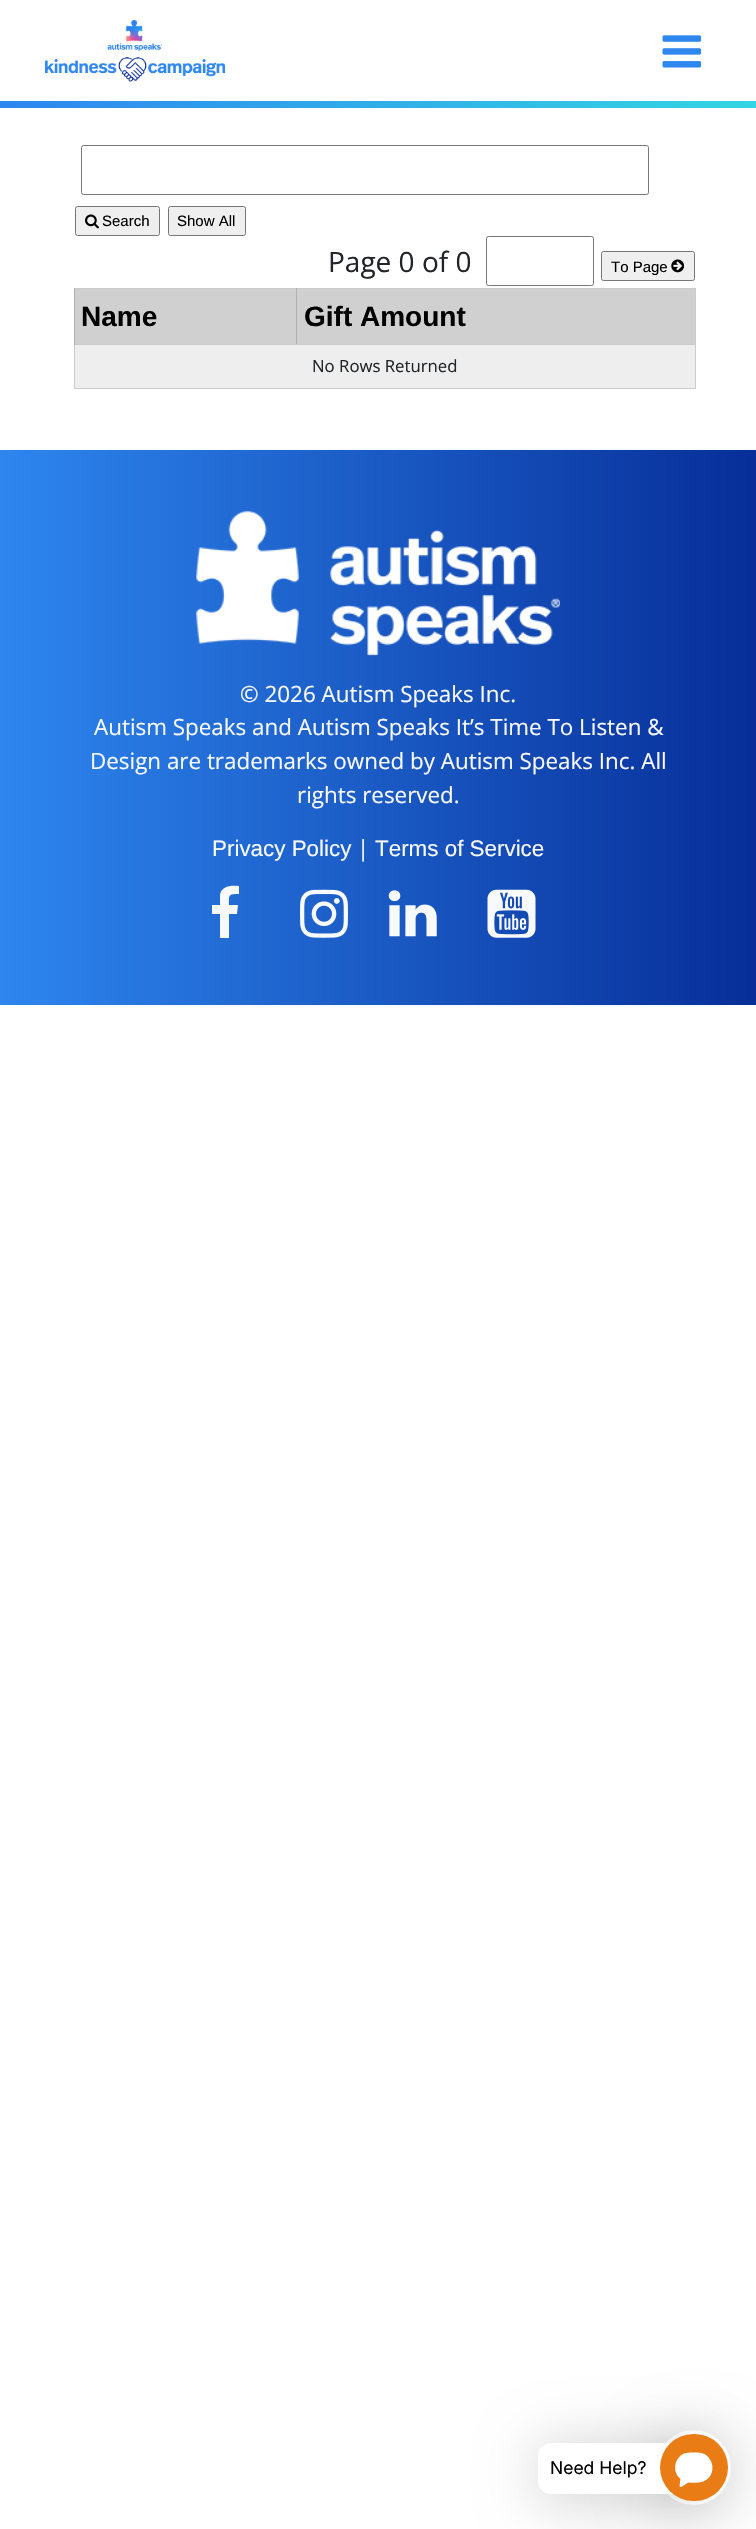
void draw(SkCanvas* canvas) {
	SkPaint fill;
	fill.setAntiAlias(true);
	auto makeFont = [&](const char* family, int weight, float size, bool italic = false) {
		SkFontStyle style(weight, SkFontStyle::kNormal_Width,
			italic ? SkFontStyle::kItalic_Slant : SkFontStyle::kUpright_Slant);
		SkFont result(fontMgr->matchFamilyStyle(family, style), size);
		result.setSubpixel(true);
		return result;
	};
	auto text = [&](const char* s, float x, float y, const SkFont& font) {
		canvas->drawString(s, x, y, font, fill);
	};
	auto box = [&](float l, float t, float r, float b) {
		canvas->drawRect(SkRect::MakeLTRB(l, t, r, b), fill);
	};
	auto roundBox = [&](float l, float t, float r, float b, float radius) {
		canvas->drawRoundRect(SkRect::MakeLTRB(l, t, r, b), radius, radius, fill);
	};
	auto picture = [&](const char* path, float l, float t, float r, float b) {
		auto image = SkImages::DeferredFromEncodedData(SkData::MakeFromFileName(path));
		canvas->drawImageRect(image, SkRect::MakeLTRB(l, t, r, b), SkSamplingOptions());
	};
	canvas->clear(0xFFFFFFFF);
	picture("image0.png", 45, 20, 226, 82);
	picture("image1.png", 662, 35, 702, 68);
	{
		const SkColor colors[] = {0xFF2E86EF, 0xFF33D6E2};
		const float stops[] = {0, 1};
		const SkPoint ends[] = {{0, 104}, {756, 104}};
		fill.setShader(SkGradientShader::MakeLinear(ends, colors, stops, 2, SkTileMode::kClamp));
		fill.setAlpha(255);
	}
	box(0, 101, 756, 108);
	fill.setStyle(SkPaint::kStroke_Style);
	fill.setStrokeWidth(1);
	fill.setShader(nullptr);
	fill.setColor(0xFF767676);
	canvas->drawRoundRect(SkRect::MakeLTRB(81.5f, 145.5f, 648.5f, 194.5f), 2, 2, fill);
	fill.setStyle(SkPaint::kFill_Style);
	fill.setColor(0xFFEFEFEF);
	canvas->drawRoundRect(SkRect::MakeLTRB(75.5f, 206.5f, 159.5f, 235.5f), 2, 2, fill);
	fill.setStyle(SkPaint::kStroke_Style);
	fill.setColor(0xFF767676);
	canvas->drawRoundRect(SkRect::MakeLTRB(75.5f, 206.5f, 159.5f, 235.5f), 2, 2, fill);
	picture("image2.png", 85, 214, 99, 229);
	fill.setStyle(SkPaint::kFill_Style);
	fill.setColor(0xFFEFEFEF);
	canvas->drawRoundRect(SkRect::MakeLTRB(168.5f, 206.5f, 245.5f, 235.5f), 2, 2, fill);
	fill.setStyle(SkPaint::kStroke_Style);
	fill.setColor(0xFF767676);
	canvas->drawRoundRect(SkRect::MakeLTRB(168.5f, 206.5f, 245.5f, 235.5f), 2, 2, fill);
	canvas->drawRoundRect(SkRect::MakeLTRB(486.5f, 236.5f, 593.5f, 285.5f), 2, 2, fill);
	fill.setStyle(SkPaint::kFill_Style);
	fill.setColor(0xFFEFEFEF);
	canvas->drawRoundRect(SkRect::MakeLTRB(601.5f, 251.5f, 694.5f, 280.5f), 2, 2, fill);
	fill.setStyle(SkPaint::kStroke_Style);
	fill.setColor(0xFF767676);
	canvas->drawRoundRect(SkRect::MakeLTRB(601.5f, 251.5f, 694.5f, 280.5f), 2, 2, fill);
	picture("image3.png", 671, 259, 685, 273);
	fill.setStyle(SkPaint::kFill_Style);
	fill.setColor(0xFFCCCCCC);
	box(74, 288, 696, 289);
	box(695, 288, 696, 389);
	box(74, 388, 696, 389);
	fill.setColor(0xFFD0D0D0);
	box(75, 289, 695, 344);
	fill.setColor(0xFFCCCCCC);
	box(296, 344, 696, 345);
	fill.setColor(0xFFB0B0B0);
	box(296, 288, 297, 345);
	fill.setColor(0xFFCCCCCC);
	box(74, 344, 75, 389);
	box(74, 344, 298, 345);
	fill.setColor(0xFFB0B0B0);
	box(74, 288, 75, 345);
	fill.setColor(0xFFEEEEEE);
	box(75, 345, 695, 388);
	{
		const SkColor colors[] = {0xFF2E86EF, 0xFF072E99};
		const float stops[] = {0, 1};
		const SkPoint ends[] = {{0, 728}, {756, 728}};
		fill.setShader(SkGradientShader::MakeLinear(ends, colors, stops, 2, SkTileMode::kClamp));
		fill.setAlpha(255);
	}
	box(0, 450, 756, 1005);
	picture("image4.png", 196, 511, 560, 656);
	fill.setShader(nullptr);
	fill.setColor(0xFFF8F9FA);
	canvas->drawPath(SkPathBuilder().moveTo(239, 886).lineTo(239, 894).cubicTo(228, 894, 229, 895, 229, 905).lineTo(238, 905).lineTo(237, 914).lineTo(229, 914).lineTo(229, 938).lineTo(220, 938).lineTo(220, 914).lineTo(212, 914).lineTo(212, 905).lineTo(220, 905).lineTo(220, 895).cubicTo(221, 886, 231, 885, 239, 886).close().detach(), fill);
	picture("image5.png", 300, 889, 348, 938);
	picture("image6.png", 388, 890, 437, 937);
	picture("image7.png", 487, 889, 536, 938);
	fill.setColor(0x33000000);
	fill.setMaskFilter(SkMaskFilter::MakeBlur(kNormal_SkBlurStyle, 30));
	canvas->drawRoundRect(SkRect::MakeLTRB(656, 2435, 731, 2510), 37.5f, 37.5f, fill);
	fill.setMaskFilter(nullptr);
	fill.setColor(0xFFFFFFFF);
	canvas->drawCircle(693.5f, 2467.5f, 37.5f, fill);
	fill.setColor(0x33000000);
	fill.setMaskFilter(SkMaskFilter::MakeBlur(kNormal_SkBlurStyle, 30));
	canvas->drawRoundRect(SkRect::MakeLTRB(538, 2448, 694, 2499), 13, 13, fill);
	fill.setMaskFilter(nullptr);
	fill.setColor(0xFFFFFFFF);
	roundBox(538, 2443, 694, 2494, 13);
	fill.setColor(0xFFEA7C15);
	roundBox(660, 2434, 728, 2501, 33.5f);
	fill.setColor(0xFFFFFFFF);
	canvas->drawPath(SkPathBuilder(SkPathFillType::kEvenOdd).moveTo(697.5f, 2452.5f).cubicTo(713.5f, 2452.5f, 718.5f, 2475, 703.5f, 2481.5f).cubicTo(700, 2483, 692.5f, 2483, 688.5f, 2482.5f).cubicTo(678.5f, 2488.5f, 679, 2489.5f, 680.5f, 2479).cubicTo(672, 2472, 674, 2458, 684, 2453.5f).cubicTo(688.5f, 2452, 693, 2452.5f, 697.5f, 2452.5f).close().detach(), fill);
	auto font1 = makeFont("Liberation Sans", 400, 15);
	fill.setColor(0xFF000000);
	text("Search", 102, 226, font1);
	text("Show All", 177, 226, font1);
	auto font2 = makeFont("Open Sans", 400, 28);
	fill.setColor(0xFF212529);
	text("Page 0 of 0", 328, 272, font2);
	fill.setColor(0xFF000000);
	text("To Page", 611, 272, font1);
	auto font3 = makeFont("Liberation Sans", 700, 28);
	text("Name", 81, 326, font3);
	text("Gift Amount", 304, 326, font3);
	auto font4 = makeFont("Open Sans", 400, 16.75f);
	fill.setColor(0xFF212529);
	text("No Rows Returned", 312, 372, font4);
	auto font5 = makeFont("Open Sans", 400, 22.4f);
	fill.setColor(0xFFF8F9FA);
	text("© 2026 Autism Speaks Inc.", 240, 702, font5);
	text("Autism Speaks and Autism Speaks It’s Time To Listen &", 94, 735, font5);
	text("Design are trademarks owned by Autism Speaks Inc. All", 90, 769, font5);
	text("rights reserved.", 297, 803, font5);
	auto font6 = makeFont("Liberation Sans", 400, 22.4f);
	text("Privacy Policy", 212, 856, font6);
	text("|", 357, 856, font5);
	text("Terms of Service", 375, 856, font6);
	auto font7 = makeFont("Inter", 400, 17.5f);
	fill.setColor(0xFF000000);
	text("Need Help?", 550, 2474, font7);
}
